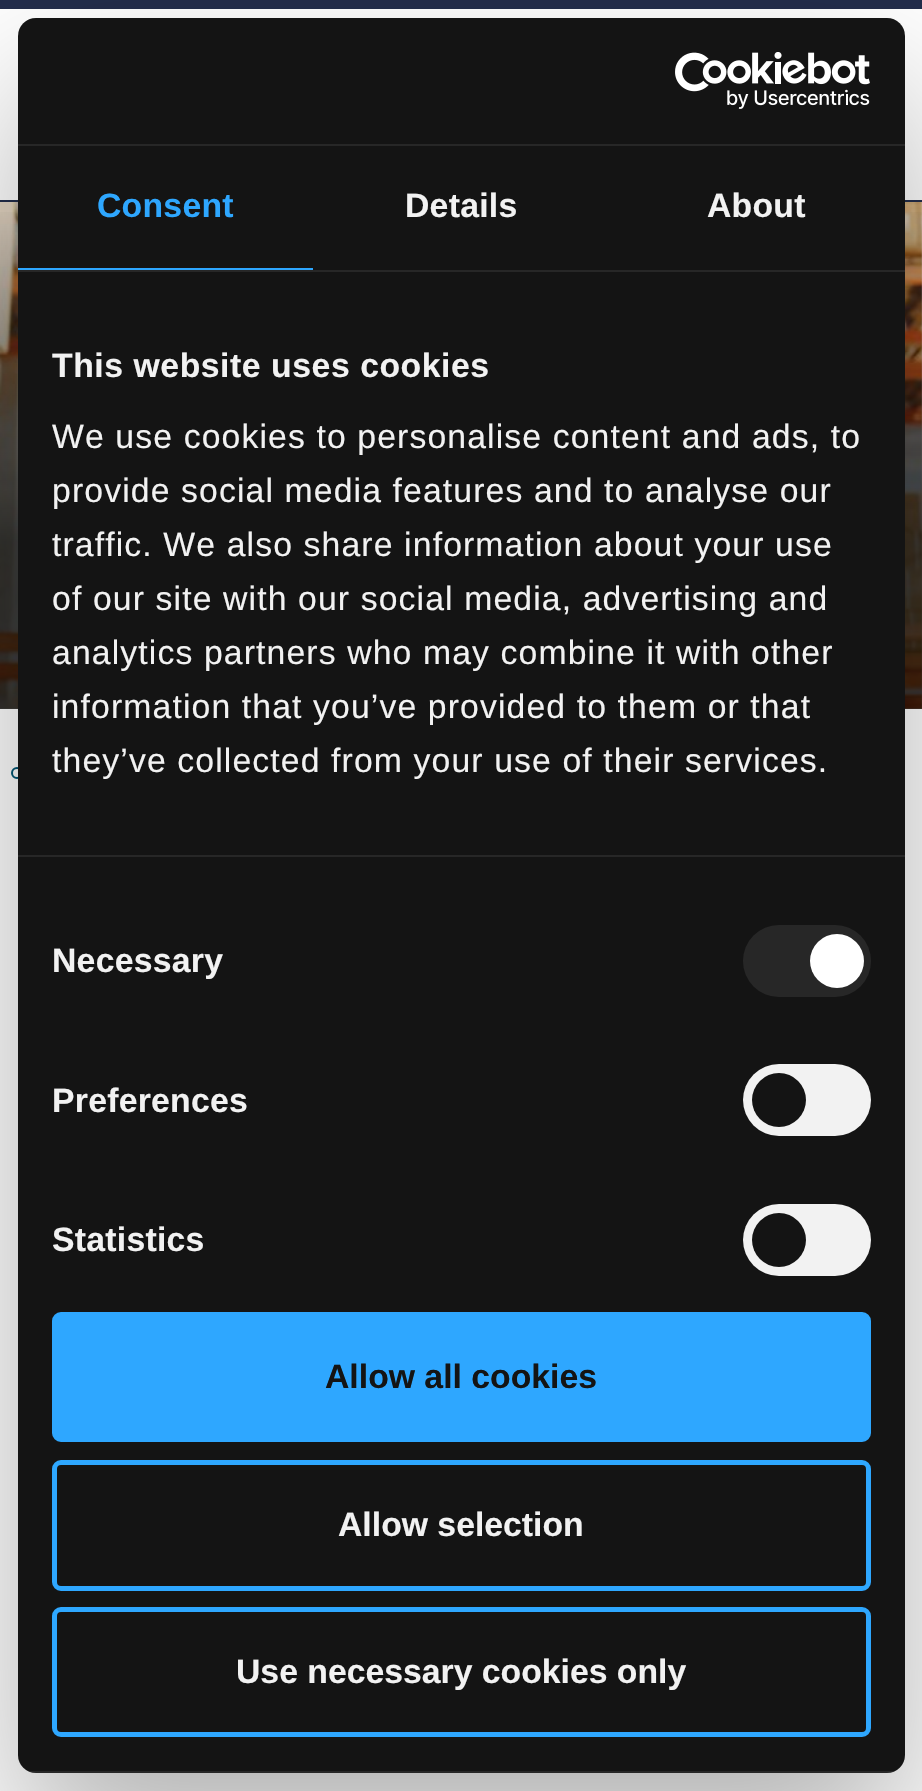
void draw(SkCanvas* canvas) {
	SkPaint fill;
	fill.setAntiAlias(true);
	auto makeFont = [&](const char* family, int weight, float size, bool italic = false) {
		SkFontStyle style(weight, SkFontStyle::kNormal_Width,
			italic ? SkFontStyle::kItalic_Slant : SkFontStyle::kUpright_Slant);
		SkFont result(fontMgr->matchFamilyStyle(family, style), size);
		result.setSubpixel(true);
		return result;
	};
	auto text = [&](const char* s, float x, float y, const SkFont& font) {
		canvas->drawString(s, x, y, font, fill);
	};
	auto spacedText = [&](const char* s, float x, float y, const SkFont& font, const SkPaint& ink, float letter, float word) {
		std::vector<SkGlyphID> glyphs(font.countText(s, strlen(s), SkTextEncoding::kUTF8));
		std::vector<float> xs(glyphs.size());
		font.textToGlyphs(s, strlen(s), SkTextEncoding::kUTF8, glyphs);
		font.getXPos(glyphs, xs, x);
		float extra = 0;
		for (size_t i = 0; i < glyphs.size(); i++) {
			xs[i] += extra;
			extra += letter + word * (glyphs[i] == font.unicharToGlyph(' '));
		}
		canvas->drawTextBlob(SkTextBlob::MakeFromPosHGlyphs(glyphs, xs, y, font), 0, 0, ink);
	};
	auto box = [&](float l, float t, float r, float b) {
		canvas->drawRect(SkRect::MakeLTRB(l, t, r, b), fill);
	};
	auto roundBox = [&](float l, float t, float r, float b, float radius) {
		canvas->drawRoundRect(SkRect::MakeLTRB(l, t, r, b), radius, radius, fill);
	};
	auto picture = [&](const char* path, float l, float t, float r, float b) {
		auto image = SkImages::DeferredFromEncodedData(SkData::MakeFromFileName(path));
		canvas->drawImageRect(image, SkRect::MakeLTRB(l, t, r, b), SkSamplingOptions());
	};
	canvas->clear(0xFFFFFFFF);
	fill.setColor(0xFF232D4B);
	box(0, 0, 922, 9);
	box(0, 200, 922, 202);
	fill.setColor(0xFFFCFCFC);
	box(0, 203, 922, 709);
	picture("image0.png", 0, 202, 922, 709);
	{
		const SkColor colors[] = {0xB3000000, 0x00000000};
		const float stops[] = {0.33f, 1};
		const SkPoint ends[] = {{461, 709}, {461, 202}};
		fill.setShader(SkGradientShader::MakeLinear(ends, colors, stops, 2, SkTileMode::kClamp));
		fill.setAlpha(255);
	}
	box(0, 212, 922, 709);
	fill.setStyle(SkPaint::kStroke_Style);
	fill.setStrokeWidth(2);
	fill.setShader(nullptr);
	fill.setColor(0xFF005573);
	canvas->drawCircle(17, 773, 5, fill);
	fill.setStyle(SkPaint::kFill_Style);
	fill.setColor(0x4D000000);
	fill.setMaskFilter(SkMaskFilter::MakeBlur(kNormal_SkBlurStyle, 76.5f));
	canvas->drawRoundRect(SkRect::MakeLTRB(18, 90, 905, 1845), 18, 18, fill);
	fill.setMaskFilter(nullptr);
	fill.setColor(0xFF141414);
	roundBox(18, 18, 905, 1773, 18);
	fill.setColor(0xFF272727);
	box(18, 144, 905, 146);
	picture("image1.png", 675, 52, 870, 109);
	box(18, 270, 905, 272);
	fill.setColor(0xFF2EA7FF);
	box(18, 268, 313, 270);
	fill.setColor(0xFF272727);
	box(18, 855, 905, 857);
	roundBox(743, 925, 871, 997, 36);
	fill.setColor(0xFFFFFFFF);
	canvas->drawCircle(837, 961, 27, fill);
	fill.setColor(0xFFF2F2F2);
	roundBox(743, 1064, 871, 1136, 36);
	fill.setColor(0xFF141414);
	canvas->drawCircle(779, 1100, 27, fill);
	fill.setColor(0xFFF2F2F2);
	roundBox(743, 1204, 871, 1276, 36);
	fill.setColor(0xFF141414);
	canvas->drawCircle(779, 1240, 27, fill);
	canvas->save();
	canvas->clipPath(SkPathBuilder().moveTo(36, 18).lineTo(887, 18).cubicTo(897, 18, 905, 26, 905, 36).lineTo(905, 1755).cubicTo(905, 1765, 897, 1773, 887, 1773).lineTo(36, 1773).cubicTo(26, 1773, 18, 1765, 18, 1755).lineTo(18, 36).cubicTo(18, 26, 26, 18, 36, 18).close().detach(), true);
	fill.setColor(0x14FFFFFF);
	box(28, 1771, 895, 1773);
	canvas->restore();
	fill.setColor(0xFF2EA7FF);
	canvas->drawRoundRect(SkRect::MakeLTRB(54.5f, 1314.5f, 868.5f, 1439.5f), 6.5f, 6.5f, fill);
	fill.setStyle(SkPaint::kStroke_Style);
	fill.setStrokeWidth(5);
	canvas->drawRoundRect(SkRect::MakeLTRB(54.5f, 1314.5f, 868.5f, 1439.5f), 6.5f, 6.5f, fill);
	canvas->drawRoundRect(SkRect::MakeLTRB(54.5f, 1462.5f, 868.5f, 1588.5f), 6.5f, 6.5f, fill);
	canvas->drawRoundRect(SkRect::MakeLTRB(54.5f, 1609.5f, 868.5f, 1734.5f), 6.5f, 6.5f, fill);
	auto font1 = makeFont("Liberation Sans", 700, 33.75f);
	fill.setStyle(SkPaint::kFill_Style);
	spacedText("Consent", 97, 217, font1, fill, 0.25f, 0);
	fill.setColor(0xFFF2F2F2);
	spacedText("Details", 405, 217, font1, fill, 0.25f, 0);
	spacedText("About", 707, 217, font1, fill, 0.25f, 0);
	spacedText("This website uses cookies", 52, 377, font1, fill, 0.55f, 0);
	auto font2 = makeFont("Liberation Sans", 400, 33.75f);
	spacedText("We use cookies to personalise content and ads, to", 52, 448, font2, fill, 1.12f, 0);
	spacedText("provide social media features and to analyse our", 52, 502, font2, fill, 1.12f, 0);
	spacedText("traffic. We also share information about your use", 52, 556, font2, fill, 1.12f, 0);
	spacedText("of our site with our social media, advertising and", 52, 610, font2, fill, 1.12f, 0);
	spacedText("analytics partners who may combine it with other", 52, 664, font2, fill, 1.12f, 0);
	spacedText("information that you’ve provided to them or that", 52, 718, font2, fill, 1.12f, 0);
	spacedText("they’ve collected from your use of their services.", 52, 772, font2, fill, 1.12f, 0);
	spacedText("Necessary", 52, 972, font1, fill, 0.25f, 0);
	spacedText("Preferences", 52, 1112, font1, fill, 0.25f, 0);
	spacedText("Statistics", 52, 1251, font1, fill, 0.25f, 0);
	fill.setColor(0xFF141414);
	text("Allow all cookies", 325, 1388, font1);
	fill.setColor(0xFFF2F2F2);
	text("Allow selection", 338, 1536, font1);
	text("Use necessary cookies only", 236, 1683, font1);
}
